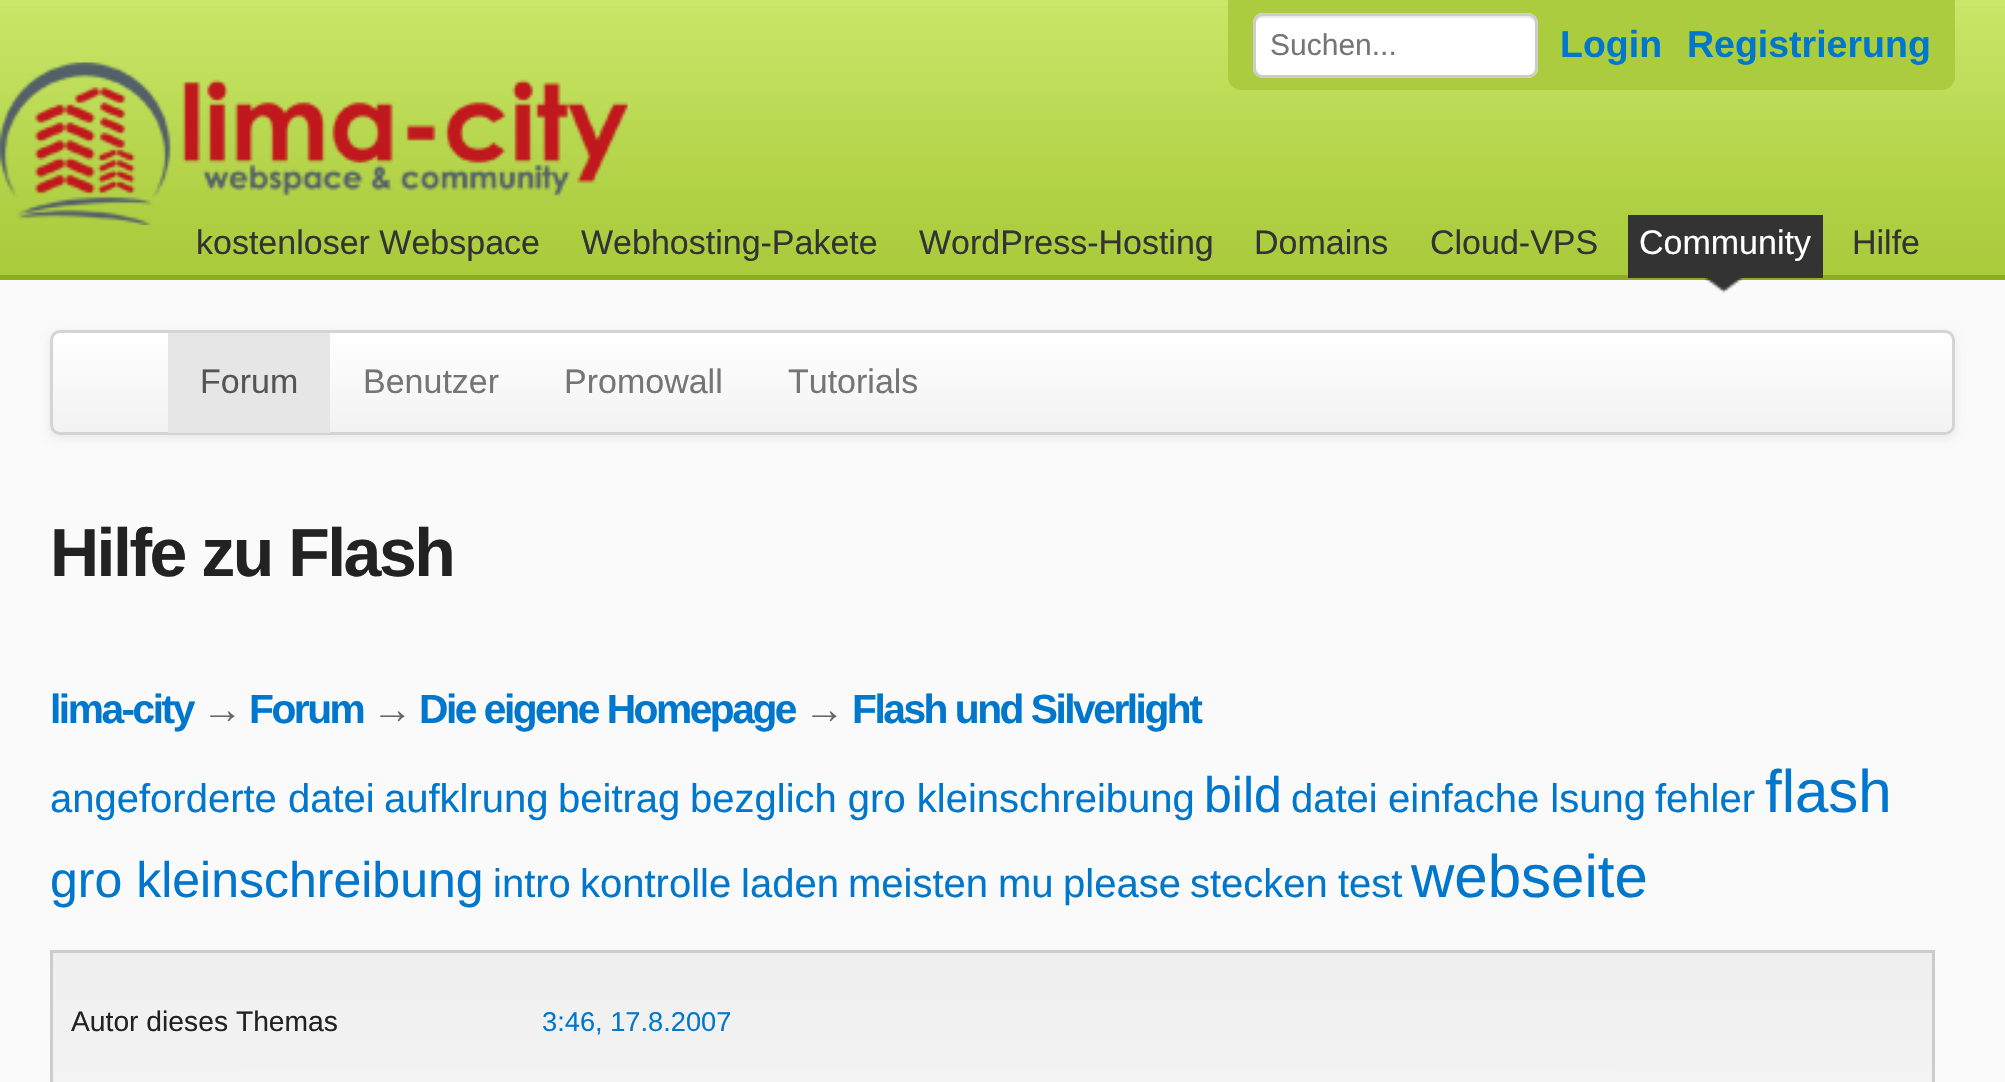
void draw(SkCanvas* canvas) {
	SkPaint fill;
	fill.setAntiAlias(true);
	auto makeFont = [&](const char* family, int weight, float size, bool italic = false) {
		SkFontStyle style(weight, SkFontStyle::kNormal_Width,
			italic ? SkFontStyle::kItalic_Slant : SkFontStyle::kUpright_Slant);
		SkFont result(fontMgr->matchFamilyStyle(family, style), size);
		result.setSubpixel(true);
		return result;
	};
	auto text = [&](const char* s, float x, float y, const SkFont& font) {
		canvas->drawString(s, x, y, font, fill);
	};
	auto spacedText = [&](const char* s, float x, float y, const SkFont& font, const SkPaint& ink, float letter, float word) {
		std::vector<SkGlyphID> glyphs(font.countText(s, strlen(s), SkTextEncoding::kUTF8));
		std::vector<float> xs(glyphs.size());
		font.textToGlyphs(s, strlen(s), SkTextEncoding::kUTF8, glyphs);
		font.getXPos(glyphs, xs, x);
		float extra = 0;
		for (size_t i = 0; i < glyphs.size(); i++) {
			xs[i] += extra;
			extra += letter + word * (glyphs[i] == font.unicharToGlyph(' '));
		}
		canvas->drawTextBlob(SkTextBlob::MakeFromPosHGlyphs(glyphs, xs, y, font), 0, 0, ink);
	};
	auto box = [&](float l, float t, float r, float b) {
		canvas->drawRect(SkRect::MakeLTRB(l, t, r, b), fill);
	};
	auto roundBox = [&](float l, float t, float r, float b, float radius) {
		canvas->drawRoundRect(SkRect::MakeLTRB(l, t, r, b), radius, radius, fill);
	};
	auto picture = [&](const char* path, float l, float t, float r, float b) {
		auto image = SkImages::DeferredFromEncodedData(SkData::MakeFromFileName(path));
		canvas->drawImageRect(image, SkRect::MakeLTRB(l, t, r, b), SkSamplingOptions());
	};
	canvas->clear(0xFFCBE86B);
	picture("image0.png", 0, 6, 2005, 275);
	fill.setColor(0xFF8DAD25);
	box(0, 275, 2005, 280);
	fill.setColor(0xFFABCC3E);
	canvas->drawPath(SkPathBuilder().moveTo(1228, 0).lineTo(1955, 0).lineTo(1955, 77).cubicTo(1955, 84, 1949, 90, 1942, 90).lineTo(1241, 90).cubicTo(1234, 90, 1228, 84, 1228, 77).close().detach(), fill);
	fill.setColor(0xFFFFFFFF);
	roundBox(1253, 13, 1538, 78, 10);
	fill.setColor(0xFFECECEC);
	canvas->drawPath(SkPathBuilder().moveTo(1262, 18).lineTo(1528, 18).cubicTo(1532, 18, 1535, 21, 1535, 25).lineTo(1535, 23).cubicTo(1535, 19, 1531, 15, 1527, 15).lineTo(1263, 15).cubicTo(1259, 15, 1255, 19, 1255, 23).lineTo(1255, 25).cubicTo(1255, 21, 1258, 18, 1262, 18).close().detach(), fill);
	fill.setStyle(SkPaint::kStroke_Style);
	fill.setStrokeWidth(3);
	fill.setColor(0xFFCCCCCC);
	canvas->drawRoundRect(SkRect::MakeLTRB(1254.5f, 14.5f, 1536.5f, 76.5f), 8.5f, 8.5f, fill);
	picture("image1.png", 0, 62, 628, 225);
	fill.setStyle(SkPaint::kFill_Style);
	fill.setColor(0xFFFAFAFA);
	box(0, 280, 2005, 1082);
	picture("image2.png", 1705, 278, 1743, 293);
	fill.setColor(0xFF333333);
	box(1628, 215, 1823, 278);
	fill.setColor(0x12000000);
	fill.setMaskFilter(SkMaskFilter::MakeBlur(kNormal_SkBlurStyle, 5));
	canvas->drawRoundRect(SkRect::MakeLTRB(50, 333, 1955, 438), 10, 10, fill);
	fill.setMaskFilter(nullptr);
	canvas->save();
	canvas->clipPath(SkPathBuilder().moveTo(60, 330).lineTo(1945, 330).cubicTo(1950.5f, 330, 1955, 334.5f, 1955, 340).lineTo(1955, 425).cubicTo(1955, 430.5f, 1950.5f, 435, 1945, 435).lineTo(60, 435).cubicTo(54.5f, 435, 50, 430.5f, 50, 425).lineTo(50, 340).cubicTo(50, 334.5f, 54.5f, 330, 60, 330).close().detach(), true);
	{
		const SkColor colors[] = {0xFFFFFFFF, 0xFFF2F2F2};
		const float stops[] = {0, 1};
		const SkPoint ends[] = {{1003, 332}, {1003, 433}};
		fill.setShader(SkGradientShader::MakeLinear(ends, colors, stops, 2, SkTileMode::kClamp));
		fill.setAlpha(255);
	}
	box(50, 333, 1955, 433);
	canvas->restore();
	fill.setStyle(SkPaint::kStroke_Style);
	fill.setShader(nullptr);
	fill.setColor(0xFFD4D4D4);
	canvas->drawRoundRect(SkRect::MakeLTRB(51.5f, 331.5f, 1953.5f, 433.5f), 8.5f, 8.5f, fill);
	fill.setStyle(SkPaint::kFill_Style);
	fill.setColor(0xFFE6E6E6);
	box(168, 333, 330, 433);
	{
		const SkColor colors[] = {0xFFEFEFEF, 0xFFFAFAFA};
		const float stops[] = {0, 0.27f};
		const SkPoint ends[] = {{992, 952}, {993, 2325}};
		fill.setShader(SkGradientShader::MakeLinear(ends, colors, stops, 2, SkTileMode::kClamp));
		fill.setAlpha(255);
	}
	box(53, 953, 1932, 1082);
	fill.setStyle(SkPaint::kStroke_Style);
	fill.setShader(nullptr);
	fill.setColor(0xFFCCCCCC);
	canvas->drawRect(SkRect::MakeLTRB(51.5f, 951.5f, 1933.5f, 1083.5f), fill);
	auto font1 = makeFont("Liberation Sans", 400, 30);
	fill.setStyle(SkPaint::kFill_Style);
	fill.setColor(0xFF757575);
	text("Suchen...", 1270, 55, font1);
	auto font2 = makeFont("Liberation Sans", 700, 37.5f);
	fill.setColor(0xFF0077CC);
	text("Login", 1560, 57, font2);
	text("Registrierung", 1687, 57, font2);
	auto font3 = makeFont("Liberation Sans", 400, 34);
	fill.setColor(0xFF333333);
	text("kostenloser Webspace", 196, 254, font3);
	text("Webhosting-Pakete", 581, 254, font3);
	text("WordPress-Hosting", 919, 254, font3);
	text("Domains", 1254, 254, font3);
	text("Cloud-VPS", 1430, 254, font3);
	fill.setColor(0xFFFFFFFF);
	text("Community", 1639, 254, font3);
	fill.setColor(0xFF333333);
	text("Hilfe", 1852, 254, font3);
	fill.setColor(0xFF555555);
	text("Forum", 200, 393, font3);
	fill.setColor(0xFF757575);
	text("Benutzer", 363, 393, font3);
	text("Promowall", 564, 393, font3);
	text("Tutorials", 788, 393, font3);
	auto font4 = makeFont("Liberation Sans", 700, 68);
	fill.setColor(0xFF222222);
	spacedText("Hilfe zu Flash", 50, 576, font4, fill, -2.5f, 0);
	auto font5 = makeFont("Liberation Sans", 700, 40.75f);
	fill.setColor(0xFF0077CC);
	spacedText("lima-city", 50, 723, font5, fill, -2.5f, 0);
	fill.setColor(0xFF666666);
	spacedText("→", 202, 723, font5, fill, -2.5f, 0);
	fill.setColor(0xFF0077CC);
	spacedText("Forum", 249, 723, font5, fill, -2.5f, 0);
	fill.setColor(0xFF666666);
	spacedText("→", 372, 723, font5, fill, -2.5f, 0);
	fill.setColor(0xFF0077CC);
	spacedText("Die eigene Homepage", 419, 723, font5, fill, -2.5f, 0);
	fill.setColor(0xFF666666);
	spacedText("→", 804, 723, font5, fill, -2.5f, 0);
	fill.setColor(0xFF0077CC);
	spacedText("Flash und Silverlight", 852, 723, font5, fill, -2.5f, 0);
	auto font6 = makeFont("Liberation Sans", 400, 40);
	text("angeforderte datei", 50, 812, font6);
	text("aufklrung", 384, 812, font6);
	text("beitrag", 558, 812, font6);
	text("bezglich gro kleinschreibung", 690, 812, font6);
	auto font7 = makeFont("Liberation Sans", 400, 50);
	text("bild", 1204, 812, font7);
	text("datei", 1291, 812, font6);
	text("einfache lsung", 1388, 812, font6);
	text("fehler", 1655, 812, font6);
	auto font8 = makeFont("Liberation Sans", 400, 60);
	text("flash", 1765, 812, font8);
	text("gro kleinschreibung", 50, 897, font7);
	text("intro", 493, 897, font6);
	text("kontrolle", 580, 897, font6);
	text("laden", 741, 897, font6);
	text("meisten", 848, 897, font6);
	text("mu", 998, 897, font6);
	text("please", 1063, 897, font6);
	text("stecken", 1190, 897, font6);
	text("test", 1338, 897, font6);
	text("webseite", 1411, 897, font8);
	auto font9 = makeFont("Liberation Sans", 400, 28.25f);
	fill.setColor(0xFF222222);
	text("Autor dieses Themas", 71, 1031, font9);
	auto font10 = makeFont("Liberation Sans", 400, 27.25f);
	fill.setColor(0xFF0077CC);
	text("3:46, 17.8.2007", 542, 1031, font10);
}
